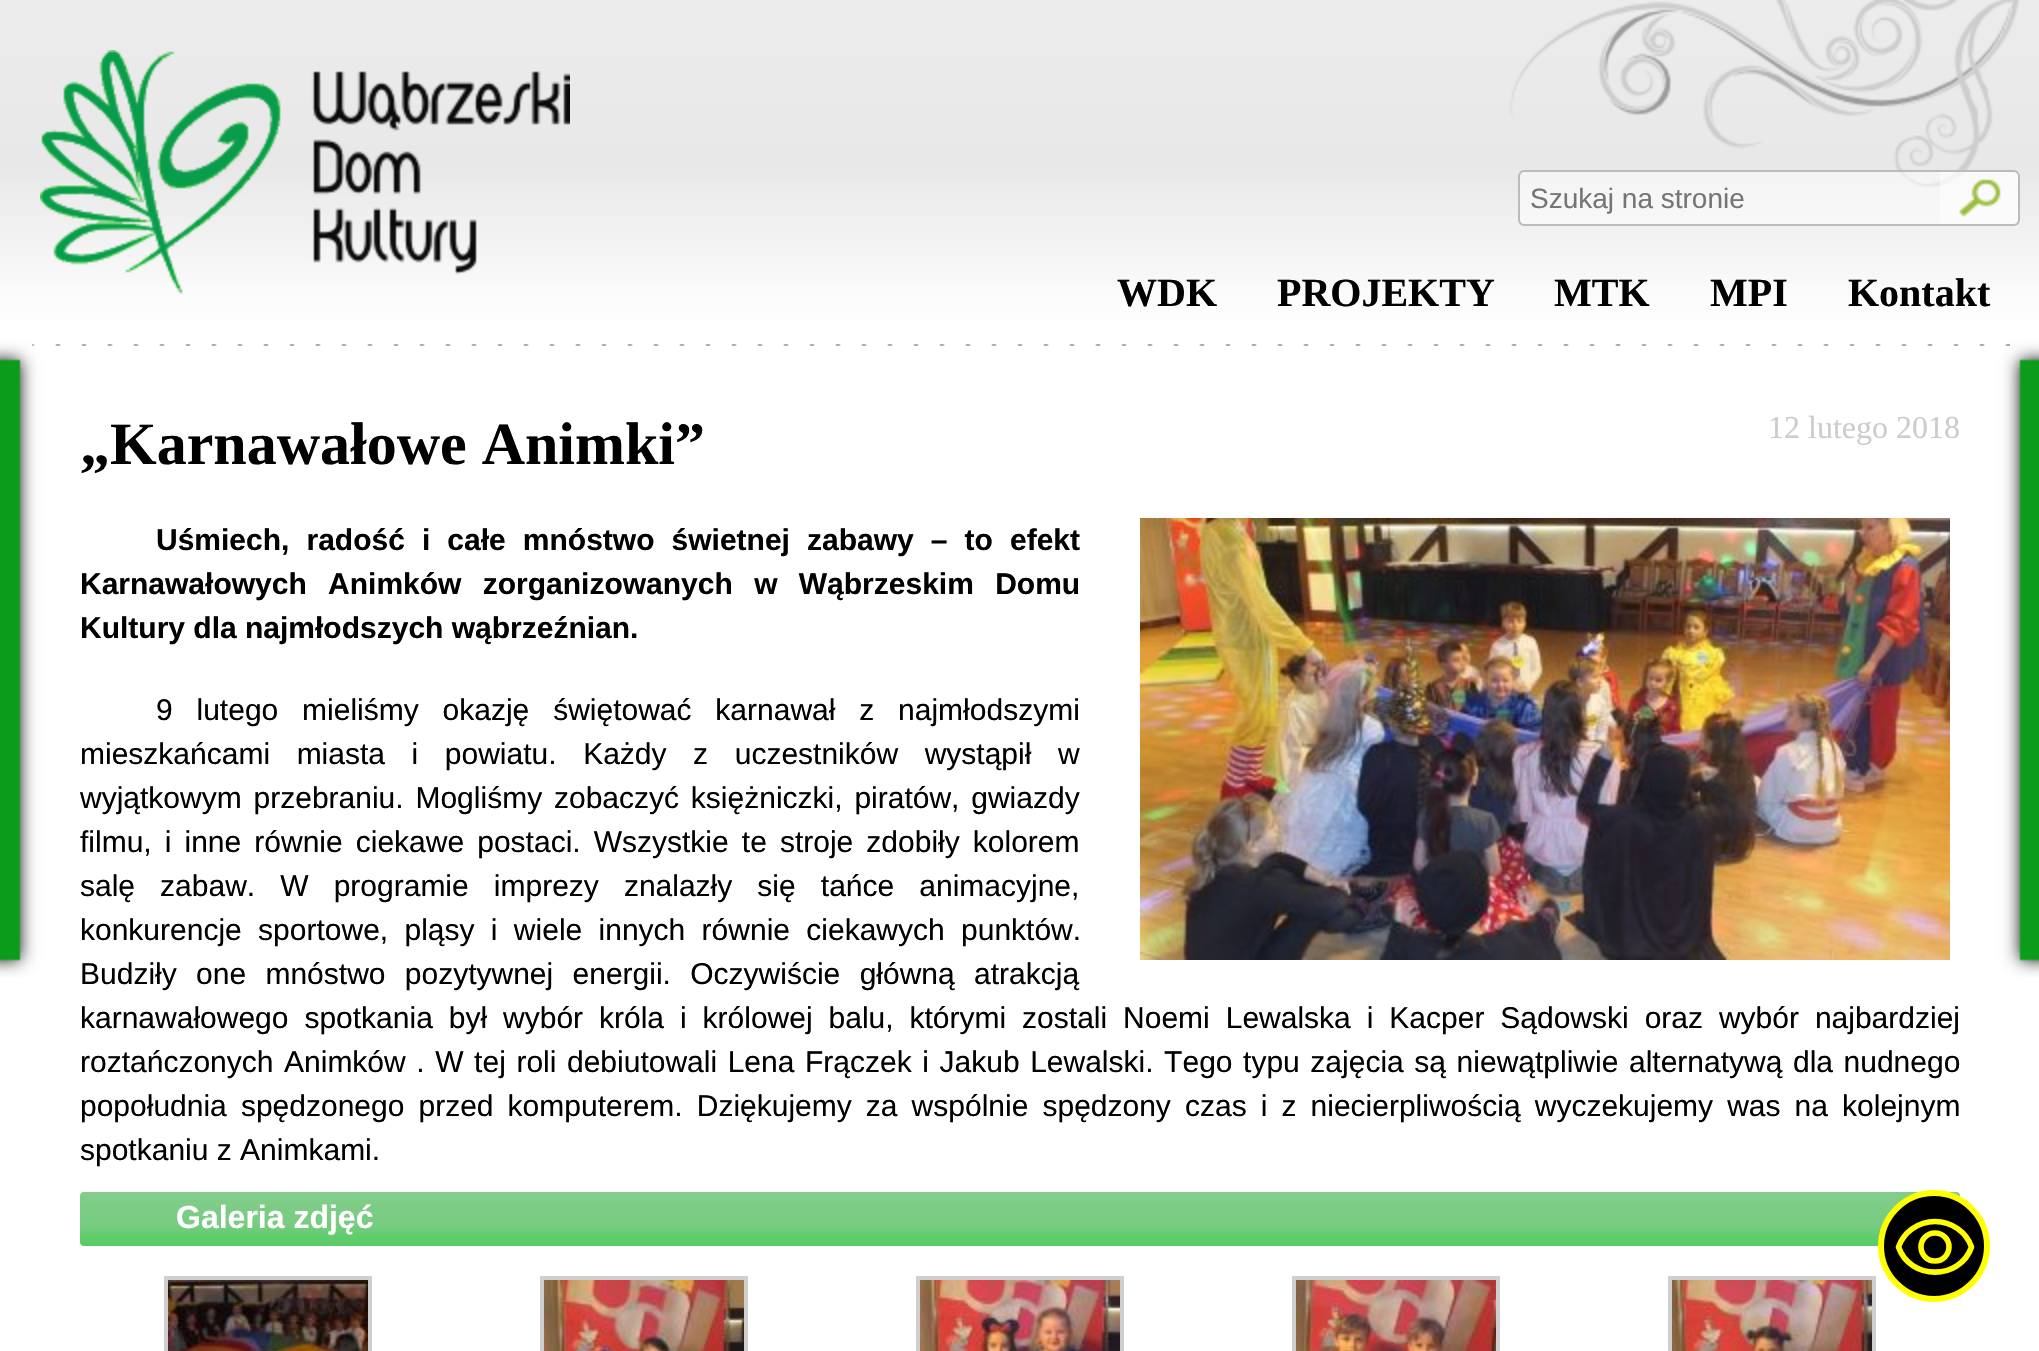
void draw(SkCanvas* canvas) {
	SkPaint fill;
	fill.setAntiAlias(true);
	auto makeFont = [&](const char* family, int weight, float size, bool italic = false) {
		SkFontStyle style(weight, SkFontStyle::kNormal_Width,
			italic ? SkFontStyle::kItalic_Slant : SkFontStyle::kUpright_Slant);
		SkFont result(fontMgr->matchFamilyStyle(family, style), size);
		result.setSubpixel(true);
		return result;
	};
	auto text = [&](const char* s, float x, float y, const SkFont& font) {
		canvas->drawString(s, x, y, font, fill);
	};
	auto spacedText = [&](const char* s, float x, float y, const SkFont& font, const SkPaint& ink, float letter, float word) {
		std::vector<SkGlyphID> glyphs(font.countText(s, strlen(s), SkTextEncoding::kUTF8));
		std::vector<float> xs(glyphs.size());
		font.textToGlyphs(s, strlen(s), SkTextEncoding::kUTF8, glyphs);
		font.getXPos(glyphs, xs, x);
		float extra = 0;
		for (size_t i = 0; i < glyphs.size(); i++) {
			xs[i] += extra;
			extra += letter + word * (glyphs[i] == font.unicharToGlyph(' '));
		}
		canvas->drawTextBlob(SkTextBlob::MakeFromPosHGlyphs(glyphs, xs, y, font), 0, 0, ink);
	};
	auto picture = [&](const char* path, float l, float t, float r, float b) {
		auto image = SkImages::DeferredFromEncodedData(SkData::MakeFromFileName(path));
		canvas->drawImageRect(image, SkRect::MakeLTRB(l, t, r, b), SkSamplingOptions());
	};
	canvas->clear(0xFFFFFFFF);
	picture("image0.png", 0, 0, 2039, 977);
	picture("image1.png", 40, 50, 570, 294);
	fill.setColor(0x80FFFFFF);
	canvas->drawPath(SkPathBuilder().moveTo(1524, 170).lineTo(1940, 170).lineTo(1940, 226).lineTo(1524, 226).cubicTo(1520.5f, 226, 1518, 223.5f, 1518, 220).lineTo(1518, 176).cubicTo(1518, 172.5f, 1520.5f, 170, 1524, 170).close().detach(), fill);
	fill.setColor(0xFFBBBBBB);
	canvas->drawPath(SkPathBuilder(SkPathFillType::kEvenOdd).moveTo(1524, 170).lineTo(1940, 170).lineTo(1940, 226).lineTo(1524, 226).cubicTo(1521, 226, 1518, 223, 1518, 220).lineTo(1518, 176).cubicTo(1518, 173, 1521, 170, 1524, 170).close().moveTo(1524, 172).lineTo(1940, 172).lineTo(1940, 224).lineTo(1524, 224).cubicTo(1522, 224, 1520, 222, 1520, 220).lineTo(1520, 176).cubicTo(1520, 174, 1522, 172, 1524, 172).close().detach(), fill);
	fill.setColor(0xBFFFFFFF);
	canvas->drawPath(SkPathBuilder().moveTo(1940, 170).lineTo(2014, 170).cubicTo(2017.5f, 170, 2020, 172.5f, 2020, 176).lineTo(2020, 220).cubicTo(2020, 223.5f, 2017.5f, 226, 2014, 226).lineTo(1940, 226).close().detach(), fill);
	picture("image2.png", 1959, 179, 2001, 217);
	fill.setColor(0xFFBBBBBB);
	canvas->drawPath(SkPathBuilder(SkPathFillType::kEvenOdd).moveTo(1940, 170).lineTo(2014, 170).cubicTo(2017, 170, 2020, 173, 2020, 176).lineTo(2020, 220).cubicTo(2020, 223, 2017, 226, 2014, 226).lineTo(1940, 226).close().moveTo(1940, 172).lineTo(2014, 172).cubicTo(2016, 172, 2018, 174, 2018, 176).lineTo(2018, 220).cubicTo(2018, 222, 2016, 224, 2014, 224).lineTo(1940, 224).close().detach(), fill);
	picture("image3.png", 32, 344, 2010, 346);
	picture("image4.png", 1140, 518, 1950, 960);
	picture("image5.png", 80, 1192, 1960, 1246);
	fill.setStyle(SkPaint::kStroke_Style);
	fill.setStrokeWidth(4);
	fill.setColor(0xFFCFCFCF);
	canvas->drawRect(SkRect::MakeLTRB(166, 1278, 370, 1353), fill);
	picture("image6.png", 168, 1280, 368, 1351);
	canvas->drawRect(SkRect::MakeLTRB(542, 1278, 746, 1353), fill);
	picture("image7.png", 544, 1280, 744, 1351);
	canvas->drawRect(SkRect::MakeLTRB(918, 1278, 1122, 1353), fill);
	picture("image8.png", 920, 1280, 1120, 1351);
	canvas->drawRect(SkRect::MakeLTRB(1294, 1278, 1498, 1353), fill);
	picture("image9.png", 1296, 1280, 1496, 1351);
	canvas->drawRect(SkRect::MakeLTRB(1670, 1278, 1874, 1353), fill);
	picture("image10.png", 1672, 1280, 1872, 1351);
	fill.setStyle(SkPaint::kFill_Style);
	fill.setColor(0xFF000000);
	canvas->drawCircle(1934, 1246, 53, fill);
	fill.setStyle(SkPaint::kStroke_Style);
	fill.setStrokeWidth(6);
	fill.setColor(0xFFFFFF00);
	canvas->drawCircle(1934, 1246, 53, fill);
	fill.setStrokeWidth(5.6f);
	fill.setStrokeCap(SkPaint::kRound_Cap);
	fill.setStrokeJoin(SkPaint::kRound_Join);
	canvas->drawPath(SkPathBuilder().moveTo(1935, 1221.5f).cubicTo(1918, 1221.5f, 1903.5f, 1232.5f, 1898.5f, 1247).cubicTo(1910, 1280.5f, 1960, 1280.5f, 1971.5f, 1247).cubicTo(1966.5f, 1232.5f, 1952, 1221.5f, 1935, 1221.5f).close().detach(), fill);
	fill.setStrokeCap(SkPaint::kButt_Cap);
	fill.setStrokeJoin(SkPaint::kMiter_Join);
	canvas->drawCircle(1935, 1247, 14, fill);
	auto font1 = makeFont("Liberation Sans", 400, 28);
	fill.setStyle(SkPaint::kFill_Style);
	fill.setColor(0xFF757575);
	text("Szukaj na stronie", 1530, 208, font1);
	auto font2 = makeFont("Liberation Serif", 700, 40);
	fill.setColor(0xFF000000);
	text("WDK", 1117, 306, font2);
	text("PROJEKTY", 1277, 306, font2);
	text("MTK", 1554, 306, font2);
	text("MPI", 1710, 306, font2);
	text("Kontakt", 1848, 306, font2);
	auto font3 = makeFont("Liberation Serif", 700, 60);
	text("„Karnawałowe Animki”", 80, 464, font3);
	auto font4 = makeFont("Liberation Serif", 400, 32);
	fill.setColor(0xFFCCCCCC);
	text("12 lutego 2018", 1768, 438, font4);
	auto font5 = makeFont("Liberation Sans", 700, 30);
	fill.setColor(0xFF000000);
	spacedText("Uśmiech, radość i całe mnóstwo świetnej zabawy – to efekt", 156, 550, font5, fill, 0, 8.75f);
	spacedText("Karnawałowych Animków zorganizowanych w Wąbrzeskim Domu", 80, 594, font5, fill, 0, 13);
	text("Kultury dla najmłodszych wąbrzeźnian.", 80, 638, font5);
	auto font6 = makeFont("Liberation Sans", 400, 30);
	spacedText("9 lutego mieliśmy okazję świętować karnawał z najmłodszymi", 156, 720, font6, fill, 0, 15.5f);
	spacedText("mieszkańcami miasta i powiatu. Każdy z uczestników wystąpił w", 80, 764, font6, fill, 0, 18.25f);
	spacedText("wyjątkowym przebraniu. Mogliśmy zobaczyć księżniczki, piratów, gwiazdy", 80, 808, font6, fill, 0, 3.5f);
	spacedText("filmu, i inne równie ciekawe postaci. Wszystkie te stroje zdobiły kolorem", 80, 852, font6, fill, 0, 4.75f);
	spacedText("salę zabaw. W programie imprezy znalazły się tańce animacyjne,", 80, 896, font6, fill, 0, 16.75f);
	spacedText("konkurencje sportowe, pląsy i wiele innych równie ciekawych punktów.", 80, 940, font6, fill, 0, 8);
	spacedText("Budziły one mnóstwo pozytywnej energii. Oczywiście główną atrakcją", 80, 984, font6, fill, 0, 11);
	spacedText("karnawałowego spotkania był wybór króla i królowej balu, którymi zostali Noemi Lewalska i Kacper Sądowski oraz wybór najbardziej", 80, 1028, font6, fill, 0, 7.6f);
	spacedText("roztańczonych Animków . W tej roli debiutowali Lena Frączek i Jakub Lewalski. Tego typu zajęcia są niewątpliwie alternatywą dla nudnego", 80, 1072, font6, fill, 0, 2.25f);
	spacedText("popołudnia spędzonego przed komputerem. Dziękujemy za wspólnie spędzony czas i z niecierpliwością wyczekujemy was na kolejnym", 80, 1116, font6, fill, 0, 5.75f);
	text("spotkaniu z Animkami.", 80, 1160, font6);
	auto font7 = makeFont("Liberation Sans", 700, 32);
	fill.setColor(0xFFFFFFFF);
	text("Galeria zdjęć", 176, 1228, font7);
}
